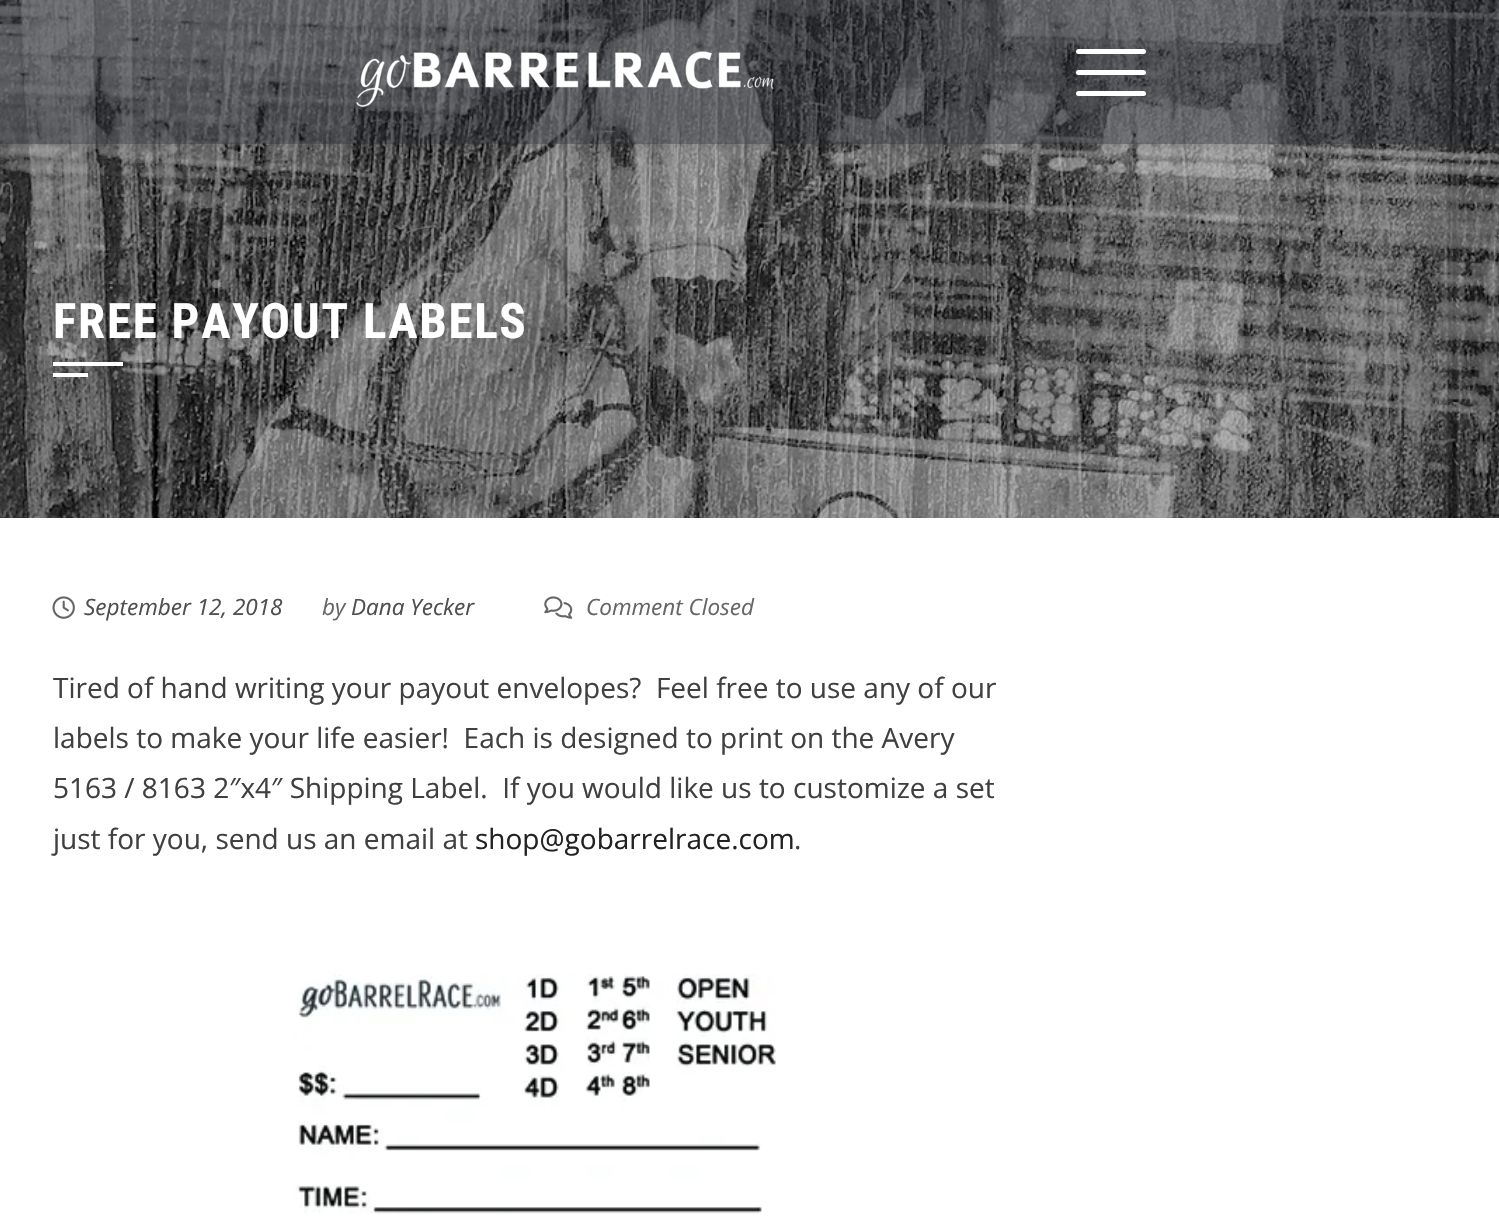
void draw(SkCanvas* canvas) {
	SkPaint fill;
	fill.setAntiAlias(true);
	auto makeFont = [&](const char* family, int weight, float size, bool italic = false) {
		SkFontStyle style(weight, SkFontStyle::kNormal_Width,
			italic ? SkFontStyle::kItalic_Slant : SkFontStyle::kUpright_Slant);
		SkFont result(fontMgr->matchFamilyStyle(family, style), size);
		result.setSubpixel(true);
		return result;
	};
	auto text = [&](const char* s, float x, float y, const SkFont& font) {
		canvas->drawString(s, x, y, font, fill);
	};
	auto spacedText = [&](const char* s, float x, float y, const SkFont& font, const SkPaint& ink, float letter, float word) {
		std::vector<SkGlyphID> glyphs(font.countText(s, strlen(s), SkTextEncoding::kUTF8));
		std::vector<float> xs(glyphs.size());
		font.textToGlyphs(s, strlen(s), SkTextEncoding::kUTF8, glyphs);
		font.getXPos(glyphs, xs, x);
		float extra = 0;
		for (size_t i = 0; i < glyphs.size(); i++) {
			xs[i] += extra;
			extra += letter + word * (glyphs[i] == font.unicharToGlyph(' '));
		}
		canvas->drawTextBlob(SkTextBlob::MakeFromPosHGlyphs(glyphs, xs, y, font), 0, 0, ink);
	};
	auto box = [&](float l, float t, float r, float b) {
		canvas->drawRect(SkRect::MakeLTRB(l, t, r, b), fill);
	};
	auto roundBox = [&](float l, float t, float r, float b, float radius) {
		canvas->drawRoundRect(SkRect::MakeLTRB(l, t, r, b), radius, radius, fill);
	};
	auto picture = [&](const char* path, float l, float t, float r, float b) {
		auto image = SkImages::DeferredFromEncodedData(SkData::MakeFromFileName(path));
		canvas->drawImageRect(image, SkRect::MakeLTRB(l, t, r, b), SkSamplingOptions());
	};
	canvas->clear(0xFFFFFFFF);
	picture("image1.png", 0, 0, 1499, 518);
	canvas->save();
	canvas->clipPath(SkPathBuilder(SkPathFillType::kEvenOdd).moveTo(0, 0).lineTo(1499, 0).lineTo(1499, 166).lineTo(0, 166).close().moveTo(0, 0).lineTo(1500, 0).lineTo(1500, 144).lineTo(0, 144).close().detach(), true);
	fill.setColor(0x33000000);
	fill.setMaskFilter(SkMaskFilter::MakeBlur(kNormal_SkBlurStyle, 7));
	canvas->drawRect(SkRect::MakeLTRB(0, 0, 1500, 144), fill);
	fill.setMaskFilter(nullptr);
	canvas->restore();
	fill.setColor(0x661E242A);
	box(0, 0, 1499, 144);
	picture("image0.png", 356, 51, 774, 107);
	fill.setColor(0xFFFFFFFF);
	roundBox(1076, 70, 1146, 75, 2.5f);
	roundBox(1076, 49, 1146, 54, 2.5f);
	roundBox(1076, 91, 1146, 96, 2.5f);
	box(53, 362, 123, 366);
	box(53, 373, 88, 377);
	picture("image2.png", 52, 596, 75, 619);
	picture("image3.png", 544, 596, 573, 619);
	picture("image4.png", 293, 974, 776, 1214);
	auto font1 = makeFont("Roboto Condensed", 700, 49);
	spacedText("FREE PAYOUT LABELS", 53, 338, font1, fill, 1.75f, 0);
	auto font2 = makeFont("Open Sans", 400, 22.5f, true);
	fill.setColor(0xFF4E4E4E);
	text("September 12, 2018", 84, 615, font2);
	fill.setColor(0xFF666666);
	text("by", 322, 615, font2);
	fill.setColor(0xFF4E4E4E);
	text("Dana Yecker", 351, 615, font2);
	fill.setColor(0xFF666666);
	text("Comment Closed", 586, 615, font2);
	auto font3 = makeFont("Open Sans", 400, 28);
	fill.setColor(0xFF404040);
	text("Tired of hand writing your payout envelopes?  Feel free to use any of our", 53, 698, font3);
	text("labels to make your life easier!  Each is designed to print on the Avery", 53, 748, font3);
	text("5163 / 8163 2″x4″ Shipping Label.  If you would like us to customize a set", 53, 798, font3);
	text("just for you, send us an email at", 53, 849, font3);
	fill.setColor(0xFF222222);
	text("shop@gobarrelrace.com", 475, 849, font3);
	fill.setColor(0xFF404040);
	text(".", 794, 849, font3);
}
